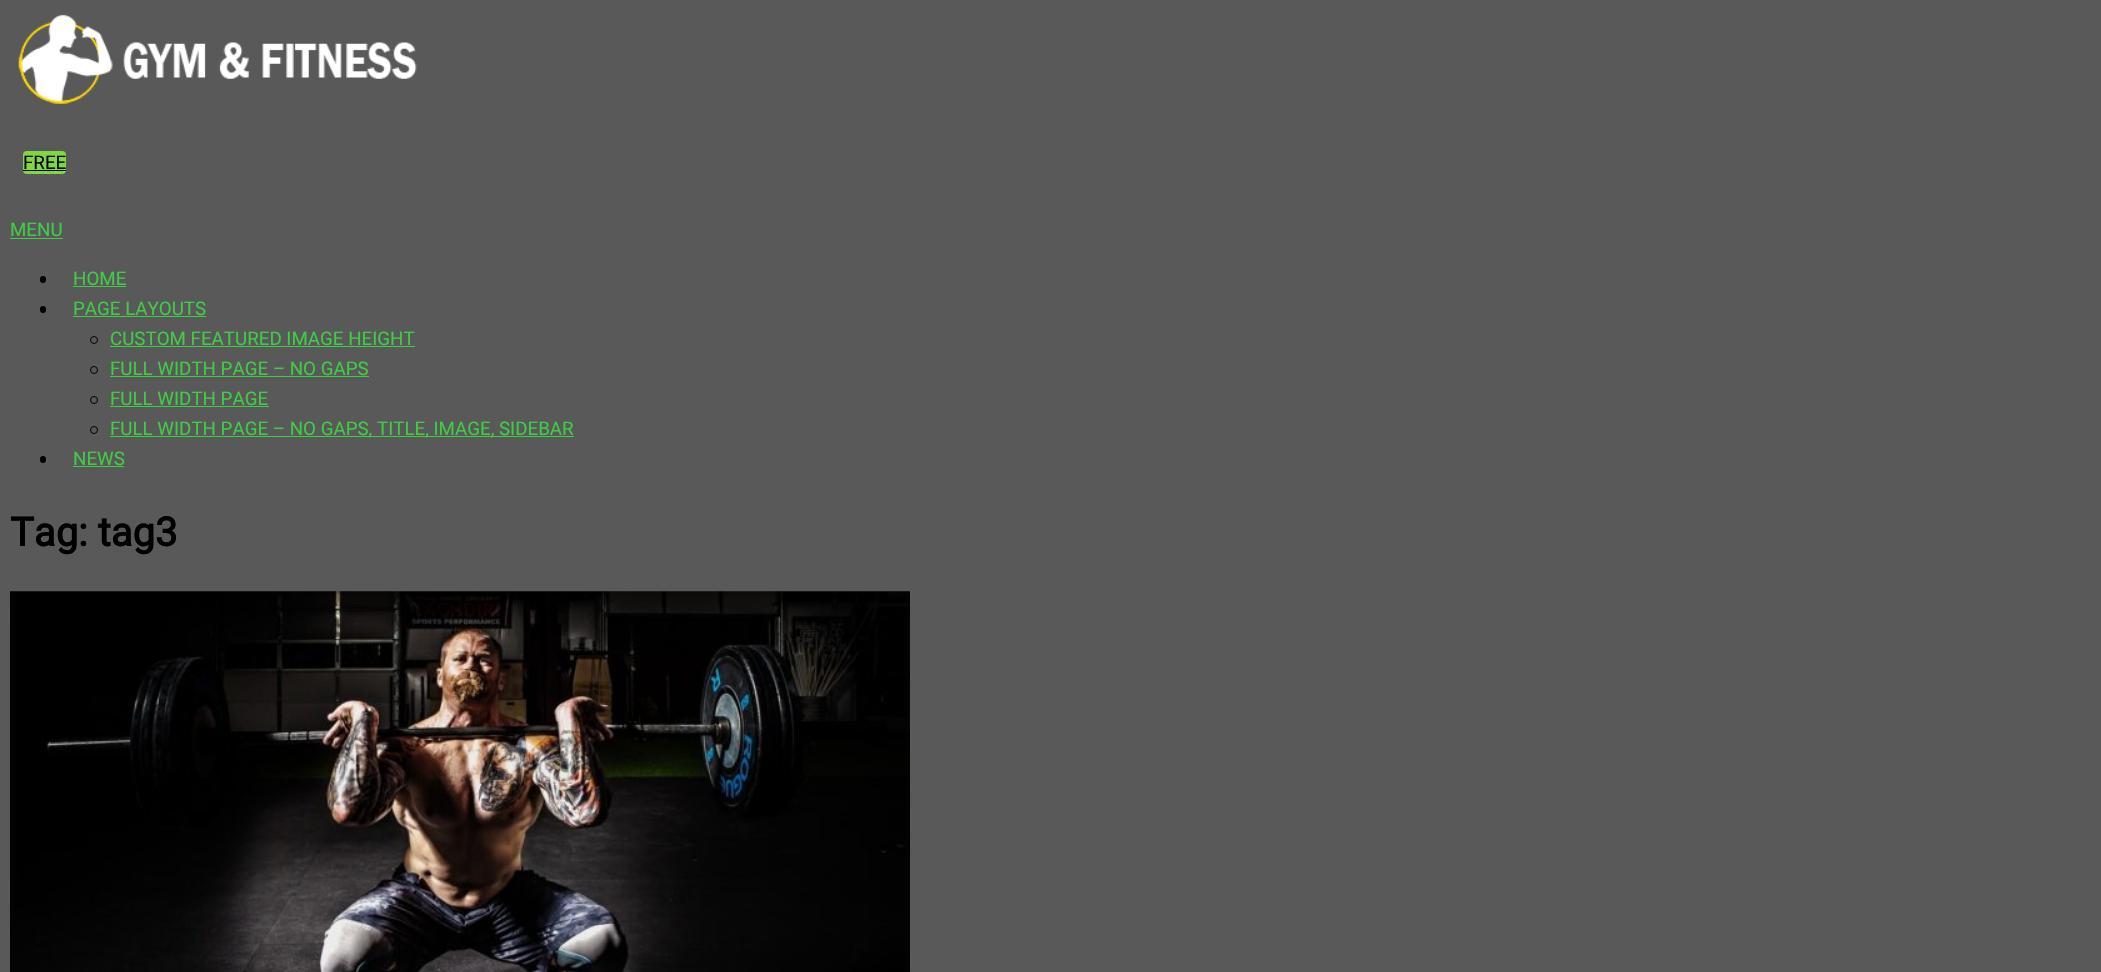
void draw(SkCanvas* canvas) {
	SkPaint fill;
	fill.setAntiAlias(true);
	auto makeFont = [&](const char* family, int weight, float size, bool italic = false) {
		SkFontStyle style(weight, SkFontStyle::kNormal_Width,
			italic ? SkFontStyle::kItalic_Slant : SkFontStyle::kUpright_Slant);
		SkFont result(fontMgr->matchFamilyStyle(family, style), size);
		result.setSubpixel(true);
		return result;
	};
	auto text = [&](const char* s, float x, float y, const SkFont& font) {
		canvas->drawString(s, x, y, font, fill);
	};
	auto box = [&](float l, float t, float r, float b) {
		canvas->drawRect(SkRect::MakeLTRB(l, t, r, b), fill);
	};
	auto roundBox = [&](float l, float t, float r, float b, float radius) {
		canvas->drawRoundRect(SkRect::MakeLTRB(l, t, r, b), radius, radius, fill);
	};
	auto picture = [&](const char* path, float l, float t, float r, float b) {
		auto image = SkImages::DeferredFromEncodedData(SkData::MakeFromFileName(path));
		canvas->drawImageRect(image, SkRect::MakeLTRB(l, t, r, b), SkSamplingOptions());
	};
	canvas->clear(0xFF595959);
	picture("image0.png", 18, 14, 417, 104);
	fill.setColor(0xFF81D742);
	roundBox(23, 151, 66, 174, 4);
	fill.setColor(0xFF000000);
	box(23, 170, 66, 171);
	fill.setColor(0xFF3FCC46);
	box(10, 238, 63, 239);
	fill.setColor(0xFF000000);
	roundBox(40, 276, 46, 283, 3);
	fill.setColor(0xFF3FCC46);
	box(73, 286, 126, 287);
	fill.setColor(0xFF000000);
	roundBox(40, 306, 46, 313, 3);
	fill.setColor(0xFF3FCC46);
	box(73, 316, 206, 317);
	fill.setStyle(SkPaint::kStroke_Style);
	fill.setStrokeWidth(1);
	fill.setColor(0xFF000000);
	canvas->drawCircle(94, 340, 3.5f, fill);
	fill.setStyle(SkPaint::kFill_Style);
	fill.setColor(0xFF3FCC46);
	box(110, 346, 415, 347);
	fill.setStyle(SkPaint::kStroke_Style);
	fill.setColor(0xFF000000);
	canvas->drawCircle(94, 370, 3.5f, fill);
	fill.setStyle(SkPaint::kFill_Style);
	fill.setColor(0xFF3FCC46);
	box(110, 376, 369, 377);
	fill.setStyle(SkPaint::kStroke_Style);
	fill.setColor(0xFF000000);
	canvas->drawCircle(94, 400, 3.5f, fill);
	fill.setStyle(SkPaint::kFill_Style);
	fill.setColor(0xFF3FCC46);
	box(110, 406, 269, 407);
	fill.setStyle(SkPaint::kStroke_Style);
	fill.setColor(0xFF000000);
	canvas->drawCircle(94, 430, 3.5f, fill);
	fill.setStyle(SkPaint::kFill_Style);
	fill.setColor(0xFF3FCC46);
	box(110, 436, 574, 437);
	fill.setColor(0xFF000000);
	roundBox(40, 456, 46, 463, 3);
	fill.setColor(0xFF3FCC46);
	box(73, 466, 124, 467);
	picture("image1.png", 10, 591, 910, 972);
	auto font1 = makeFont("Roboto", 400, 18.75f);
	fill.setColor(0xFF000000);
	text("FREE", 23, 169, font1);
	fill.setColor(0xFF3FCC46);
	text("MENU", 10, 236, font1);
	text("HOME", 73, 285, font1);
	text("PAGE LAYOUTS", 73, 315, font1);
	text("CUSTOM FEATURED IMAGE HEIGHT", 110, 345, font1);
	text("FULL WIDTH PAGE – NO GAPS", 110, 375, font1);
	text("FULL WIDTH PAGE", 110, 405, font1);
	text("FULL WIDTH PAGE – NO GAPS, TITLE, IMAGE, SIDEBAR", 110, 435, font1);
	text("NEWS", 73, 465, font1);
	auto font2 = makeFont("Roboto", 700, 40);
	fill.setColor(0xFF000000);
	text("Tag: tag3", 10, 546, font2);
}
